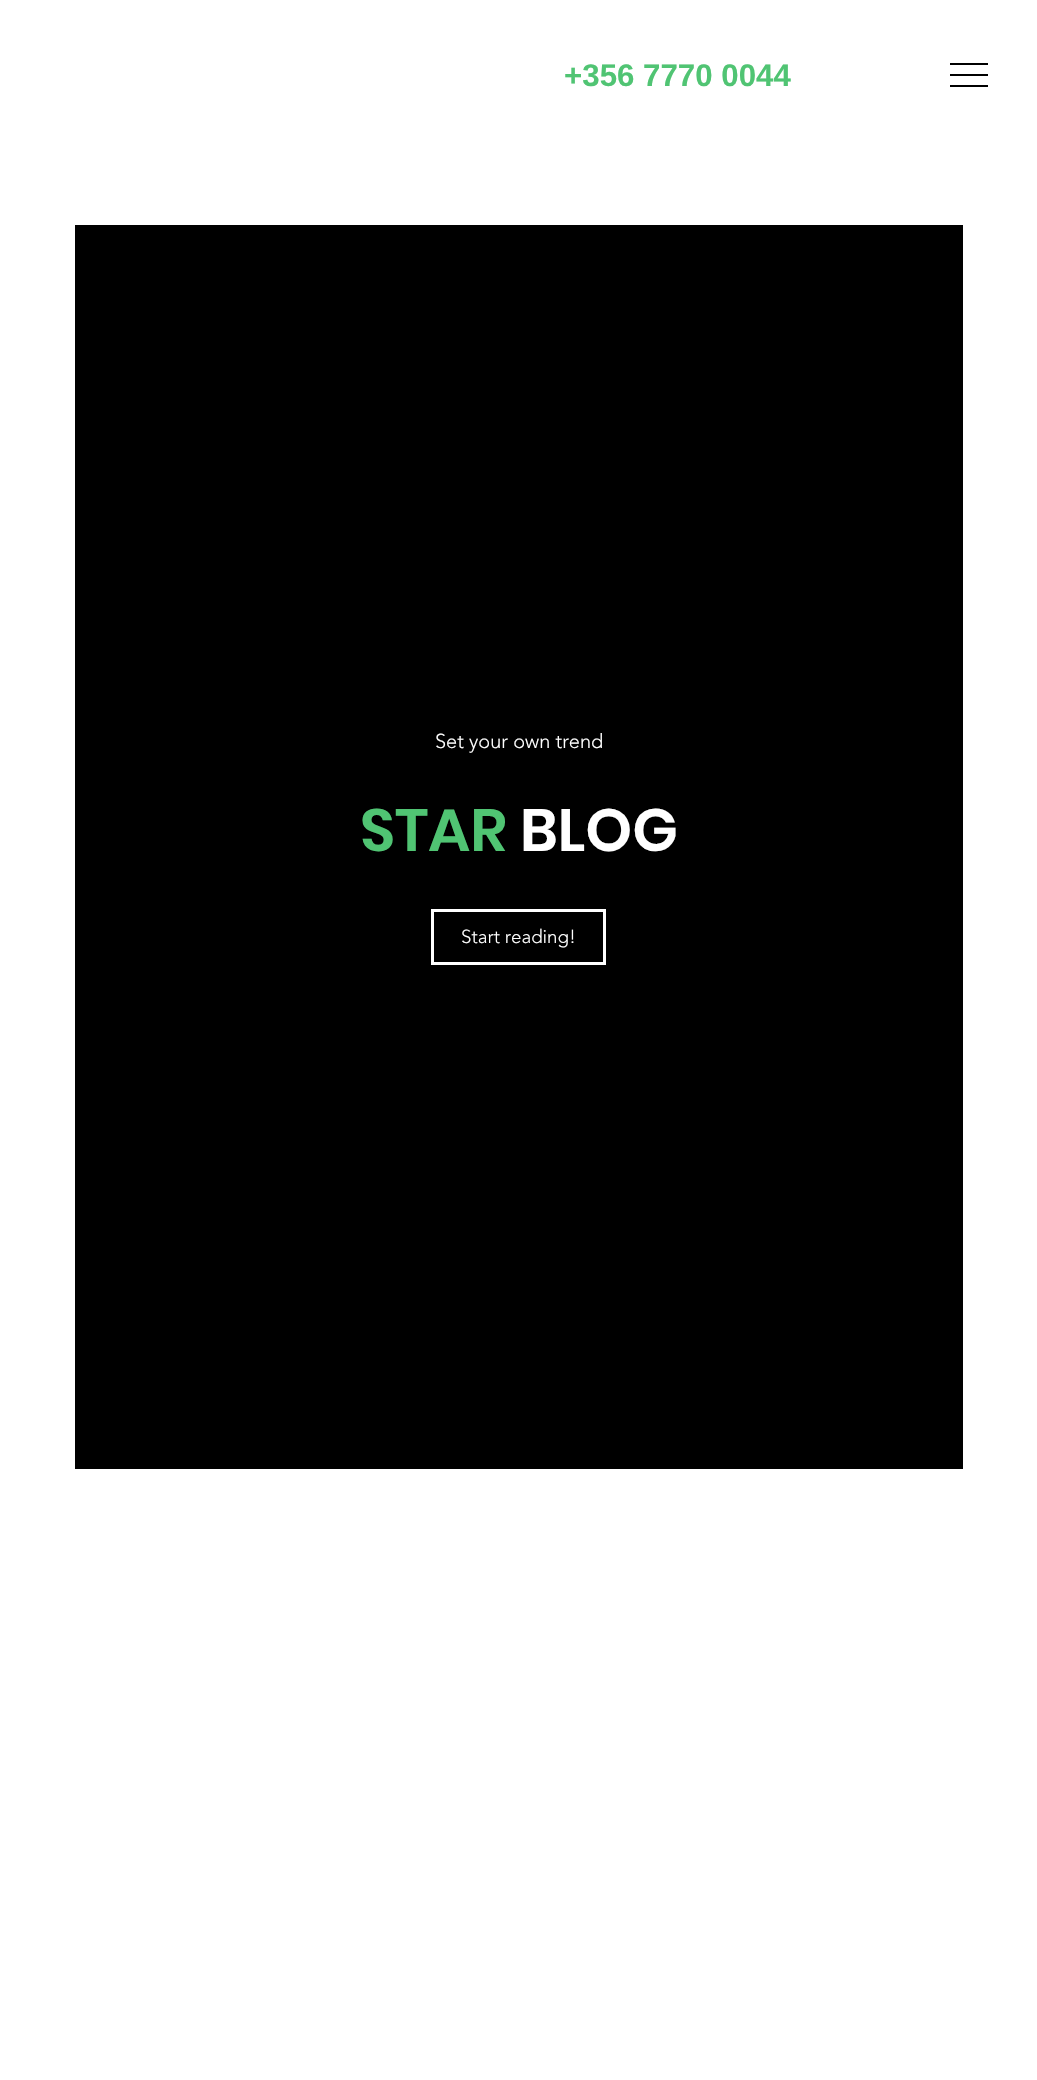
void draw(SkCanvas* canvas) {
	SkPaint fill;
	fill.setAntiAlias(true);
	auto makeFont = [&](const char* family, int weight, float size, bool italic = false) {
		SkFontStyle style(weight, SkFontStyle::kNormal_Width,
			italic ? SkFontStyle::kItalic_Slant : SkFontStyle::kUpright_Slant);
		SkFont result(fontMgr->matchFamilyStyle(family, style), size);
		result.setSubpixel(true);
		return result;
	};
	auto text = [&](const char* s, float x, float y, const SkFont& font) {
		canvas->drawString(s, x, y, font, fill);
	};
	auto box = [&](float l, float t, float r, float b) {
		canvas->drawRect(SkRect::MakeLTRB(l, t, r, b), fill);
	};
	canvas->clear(0xFFFFFFFF);
	fill.setColor(0xFF000000);
	box(950, 63, 988, 65);
	box(950, 74, 988, 76);
	box(950, 85, 988, 87);
	box(75, 225, 963, 1469);
	fill.setStyle(SkPaint::kStroke_Style);
	fill.setStrokeWidth(3);
	fill.setColor(0xFFFFFFFF);
	canvas->drawRect(SkRect::MakeLTRB(432.5f, 910.5f, 604.5f, 963.5f), fill);
	auto font1 = makeFont("Liberation Sans", 700, 31.25f);
	fill.setStyle(SkPaint::kFill_Style);
	fill.setColor(0xFF50C473);
	text("+356 7770 0044", 564, 86, font1);
	auto font2 = makeFont("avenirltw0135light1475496", 300, 20);
	fill.setColor(0xFFFFFFFF);
	text("Set your own trend", 435, 748, font2);
	auto font3 = makeFont("Poppins", 600, 59.5f);
	fill.setColor(0xFF50C473);
	text("STAR", 360, 851, font3);
	fill.setColor(0xFFFFFFFF);
	text("BLOG", 520, 851, font3);
	auto font4 = makeFont("avenirltw0135light1475496", 300, 18.75f);
	text("Start reading!", 461, 943, font4);
}
